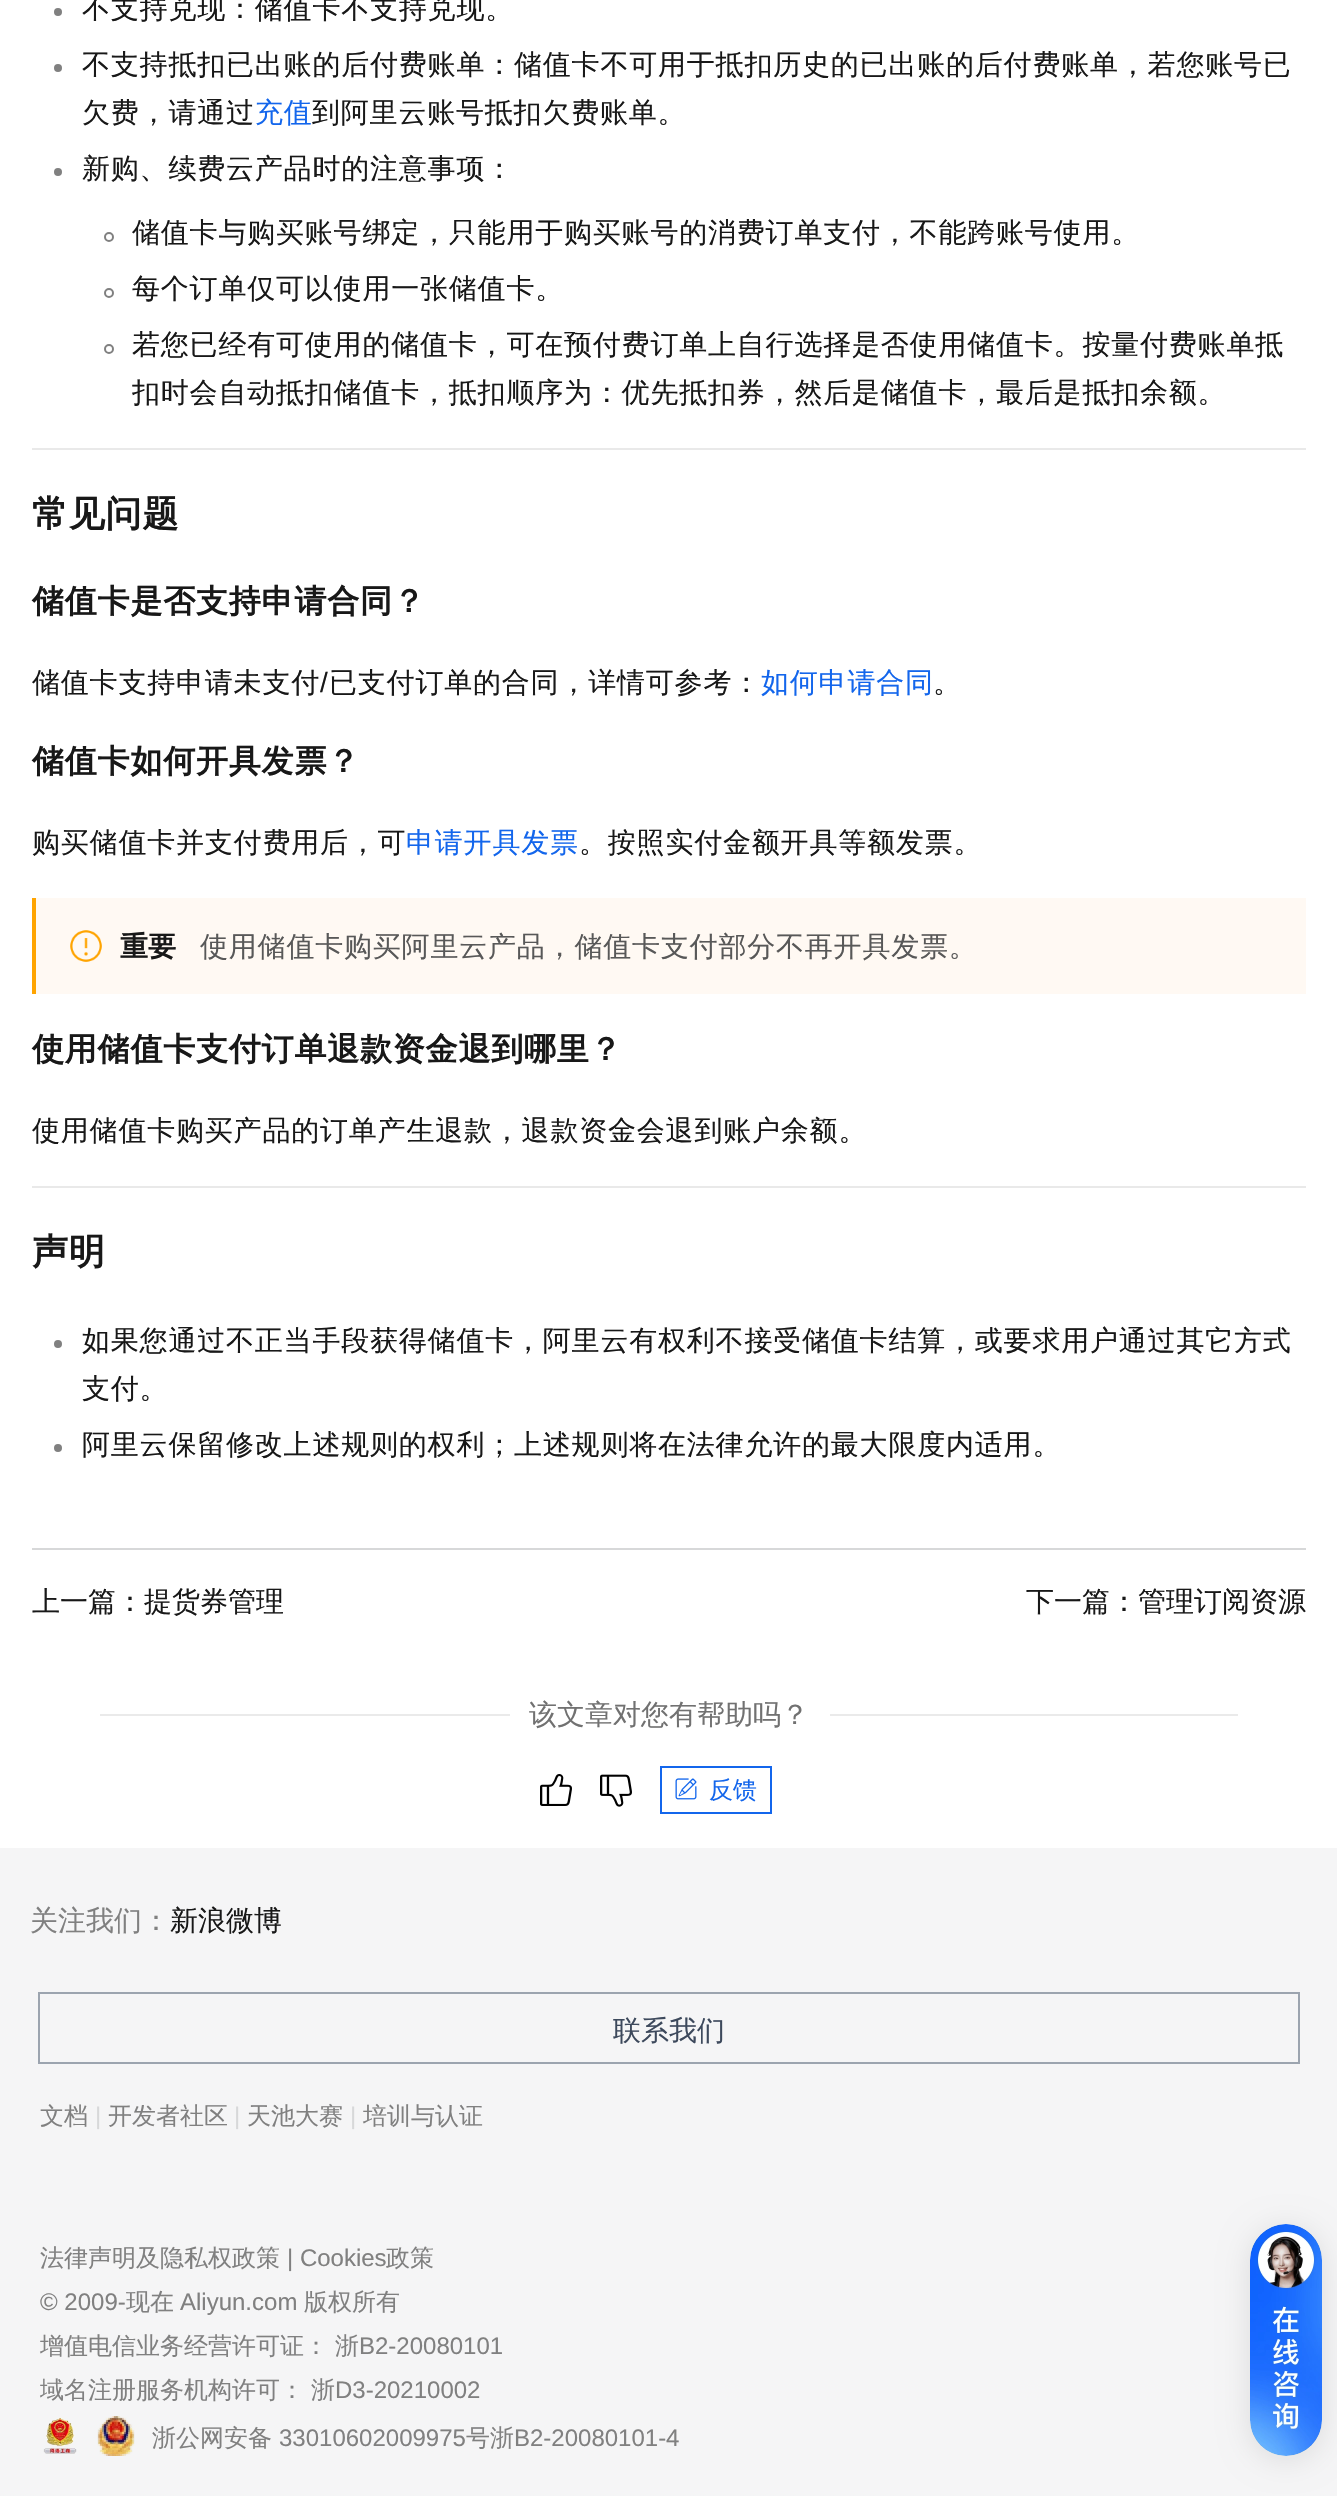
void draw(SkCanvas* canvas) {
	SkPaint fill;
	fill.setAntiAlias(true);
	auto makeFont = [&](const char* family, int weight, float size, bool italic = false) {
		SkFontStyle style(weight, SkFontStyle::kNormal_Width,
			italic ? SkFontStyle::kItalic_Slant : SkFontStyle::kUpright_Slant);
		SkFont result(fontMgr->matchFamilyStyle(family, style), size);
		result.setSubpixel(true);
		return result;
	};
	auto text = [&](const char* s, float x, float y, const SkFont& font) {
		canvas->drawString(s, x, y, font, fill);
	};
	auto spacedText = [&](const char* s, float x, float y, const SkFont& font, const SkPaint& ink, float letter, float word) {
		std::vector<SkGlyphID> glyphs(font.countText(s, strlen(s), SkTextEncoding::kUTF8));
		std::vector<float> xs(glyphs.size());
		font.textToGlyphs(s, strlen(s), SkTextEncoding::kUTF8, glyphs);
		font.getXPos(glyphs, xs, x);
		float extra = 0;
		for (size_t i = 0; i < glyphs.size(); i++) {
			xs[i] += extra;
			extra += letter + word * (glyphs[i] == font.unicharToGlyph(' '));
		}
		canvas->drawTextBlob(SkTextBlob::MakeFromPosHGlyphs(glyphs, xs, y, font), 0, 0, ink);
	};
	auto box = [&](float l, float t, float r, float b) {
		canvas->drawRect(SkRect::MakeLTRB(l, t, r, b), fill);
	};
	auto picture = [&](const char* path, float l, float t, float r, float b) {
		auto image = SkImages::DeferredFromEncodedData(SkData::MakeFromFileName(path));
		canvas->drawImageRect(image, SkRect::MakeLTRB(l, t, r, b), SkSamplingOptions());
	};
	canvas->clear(0xFFFFFFFF);
	fill.setColor(0xFF808080);
	canvas->drawCircle(58, 12, 4, fill);
	canvas->drawCircle(58, 68, 4, fill);
	canvas->drawCircle(58, 172, 4, fill);
	fill.setStyle(SkPaint::kStroke_Style);
	fill.setStrokeWidth(2);
	canvas->drawCircle(109, 237, 4, fill);
	canvas->drawCircle(109, 293, 4, fill);
	canvas->drawCircle(109, 349, 4, fill);
	fill.setStyle(SkPaint::kFill_Style);
	fill.setColor(0xFFE9E9E9);
	box(32, 448, 1306, 450);
	fill.setColor(0xFFFFF9F3);
	box(36, 898, 1306, 994);
	fill.setColor(0xFFFFA400);
	box(32, 898, 36, 994);
	picture("image0.png", 70, 930, 102, 962);
	fill.setColor(0xFFE9E9E9);
	box(32, 1186, 1306, 1188);
	fill.setColor(0xFF808080);
	canvas->drawCircle(58, 1344, 4, fill);
	canvas->drawCircle(58, 1448, 4, fill);
	fill.setColor(0xFFD7D8D9);
	box(32, 1548, 1306, 1550);
	fill.setColor(0xFFEAEAEA);
	box(100, 1714, 510, 1716);
	box(830, 1714, 1238, 1716);
	picture("image1.png", 540, 1774, 572, 1806);
	picture("image2.png", 600, 1774, 632, 1807);
	fill.setStyle(SkPaint::kStroke_Style);
	fill.setColor(0xFF1366EC);
	canvas->drawRect(SkRect::MakeLTRB(661, 1767, 771, 1813), fill);
	picture("image3.png", 675, 1778, 697, 1800);
	fill.setStyle(SkPaint::kFill_Style);
	fill.setColor(0xFFF5F5F6);
	box(0, 1848, 1337, 2496);
	fill.setStyle(SkPaint::kStroke_Style);
	fill.setColor(0xFF9CA4AF);
	canvas->drawRect(SkRect::MakeLTRB(39, 1993, 1299, 2063), fill);
	picture("image4.png", 43, 2417, 77, 2454);
	picture("image5.png", 97, 2416, 135, 2456);
	fill.setStyle(SkPaint::kFill_Style);
	fill.setColor(0x1A000000);
	fill.setMaskFilter(SkMaskFilter::MakeBlur(kNormal_SkBlurStyle, 15));
	canvas->drawRoundRect(SkRect::MakeLTRB(1250, 2228, 1322, 2460), 36, 36, fill);
	fill.setMaskFilter(nullptr);
	picture("image6.png", 1250, 2224, 1322, 2456);
	auto font1 = makeFont("WenQuanYi Zen Hei", 500, 28);
	fill.setColor(0xFF181818);
	spacedText("不支持兑现：储值卡不支持兑现。", 82, 18, font1, fill, 0.8f, 0);
	spacedText("不支持抵扣已出账的后付费账单：储值卡不可用于抵扣历史的已出账的后付费账单，若您账号已", 82, 74, font1, fill, 0.8f, 0);
	spacedText("欠费，请通过", 82, 122, font1, fill, 0.8f, 0);
	fill.setColor(0xFF1366EC);
	spacedText("充值", 255, 122, font1, fill, 0.8f, 0);
	fill.setColor(0xFF181818);
	spacedText("到阿里云账号抵扣欠费账单。", 312, 122, font1, fill, 0.8f, 0);
	spacedText("新购、续费云产品时的注意事项：", 82, 178, font1, fill, 0.8f, 0);
	spacedText("储值卡与购买账号绑定，只能用于购买账号的消费订单支付，不能跨账号使用。", 132, 242, font1, fill, 0.8f, 0);
	spacedText("每个订单仅可以使用一张储值卡。", 132, 298, font1, fill, 0.8f, 0);
	spacedText("若您已经有可使用的储值卡，可在预付费订单上自行选择是否使用储值卡。按量付费账单抵", 132, 354, font1, fill, 0.8f, 0);
	spacedText("扣时会自动抵扣储值卡，抵扣顺序为：优先抵扣券，然后是储值卡，最后是抵扣余额。", 132, 402, font1, fill, 0.8f, 0);
	auto font2 = makeFont("WenQuanYi Zen Hei", 700, 36);
	spacedText("常见问题", 32, 526, font2, fill, 0.8f, 0);
	auto font3 = makeFont("WenQuanYi Zen Hei", 700, 32);
	spacedText("储值卡是否支持申请合同？", 32, 612, font3, fill, 0.8f, 0);
	spacedText("储值卡支持申请未支付", 32, 692, font1, fill, 0.8f, 0);
	auto font4 = makeFont("Liberation Sans", 400, 28);
	spacedText("/", 320, 692, font4, fill, 0.8f, 0);
	spacedText("已支付订单的合同，详情可参考：", 329, 692, font1, fill, 0.8f, 0);
	fill.setColor(0xFF1366EC);
	spacedText("如何申请合同", 761, 692, font1, fill, 0.8f, 0);
	fill.setColor(0xFF181818);
	spacedText("。", 933, 692, font1, fill, 0.8f, 0);
	spacedText("储值卡如何开具发票？", 32, 772, font3, fill, 0.8f, 0);
	spacedText("购买储值卡并支付费用后，可", 32, 852, font1, fill, 0.8f, 0);
	fill.setColor(0xFF1366EC);
	spacedText("申请开具发票", 406, 852, font1, fill, 0.8f, 0);
	fill.setColor(0xFF181818);
	spacedText("。按照实付金额开具等额发票。", 579, 852, font1, fill, 0.8f, 0);
	auto font5 = makeFont("WenQuanYi Zen Hei", 700, 28);
	text("重要", 120, 956, font5);
	fill.setColor(0xFF585858);
	spacedText("使用储值卡购买阿里云产品，储值卡支付部分不再开具发票。", 200, 956, font1, fill, 0.8f, 0);
	fill.setColor(0xFF181818);
	spacedText("使用储值卡支付订单退款资金退到哪里？", 32, 1060, font3, fill, 0.8f, 0);
	spacedText("使用储值卡购买产品的订单产生退款，退款资金会退到账户余额。", 32, 1140, font1, fill, 0.8f, 0);
	spacedText("声明", 32, 1264, font2, fill, 0.8f, 0);
	spacedText("如果您通过不正当手段获得储值卡，阿里云有权利不接受储值卡结算，或要求用户通过其它方式", 82, 1350, font1, fill, 0.8f, 0);
	spacedText("支付。", 82, 1398, font1, fill, 0.8f, 0);
	spacedText("阿里云保留修改上述规则的权利；上述规则将在法律允许的最大限度内适用。", 82, 1454, font1, fill, 0.8f, 0);
	text("上一篇：提货券管理", 32, 1611, font1);
	text("下一篇：管理订阅资源", 1026, 1611, font1);
	fill.setColor(0xFF717171);
	text("该文章对您有帮助吗？", 529, 1724, font1);
	auto font6 = makeFont("WenQuanYi Zen Hei", 500, 24);
	fill.setColor(0xFF1366EC);
	text("反馈", 709, 1798, font6);
	fill.setColor(0xFF808080);
	text("关注我们：", 30, 1930, font1);
	fill.setColor(0xFF181818);
	text("新浪微博", 170, 1930, font1);
	fill.setColor(0xFF3D495C);
	text("联系我们", 613, 2040, font1);
	fill.setColor(0xFF808080);
	text("文档", 40, 2124, font6);
	auto font7 = makeFont("Liberation Sans", 400, 24);
	fill.setColor(0xFFD7D8D9);
	text("|", 95, 2124, font7);
	fill.setColor(0xFF808080);
	text("开发者社区", 108, 2124, font6);
	fill.setColor(0xFFD7D8D9);
	text("|", 234, 2124, font7);
	fill.setColor(0xFF808080);
	text("天池大赛", 247, 2124, font6);
	fill.setColor(0xFFD7D8D9);
	text("|", 350, 2124, font7);
	fill.setColor(0xFF808080);
	text("培训与认证", 363, 2124, font6);
	text("法律声明及隐私权政策", 40, 2266, font6);
	text("| Cookies", 287, 2266, font7);
	text("政策", 386, 2266, font6);
	text("© 2009-", 40, 2310, font7);
	text("现在", 126, 2310, font6);
	text("Aliyun.com", 180, 2310, font7);
	text("版权所有", 304, 2310, font6);
	text("增值电信业务经营许可证：", 40, 2354, font6);
	text("浙", 335, 2354, font6);
	text("B2-20080101", 359, 2354, font7);
	text("域名注册服务机构许可：", 40, 2398, font6);
	text("浙", 311, 2398, font6);
	text("D3-20210002", 335, 2398, font7);
	text("浙公网安备", 152, 2446, font6);
	text("33010602009975", 279, 2446, font7);
	text("号浙", 466, 2446, font6);
	text("B2-20080101-4", 514, 2446, font7);
}
